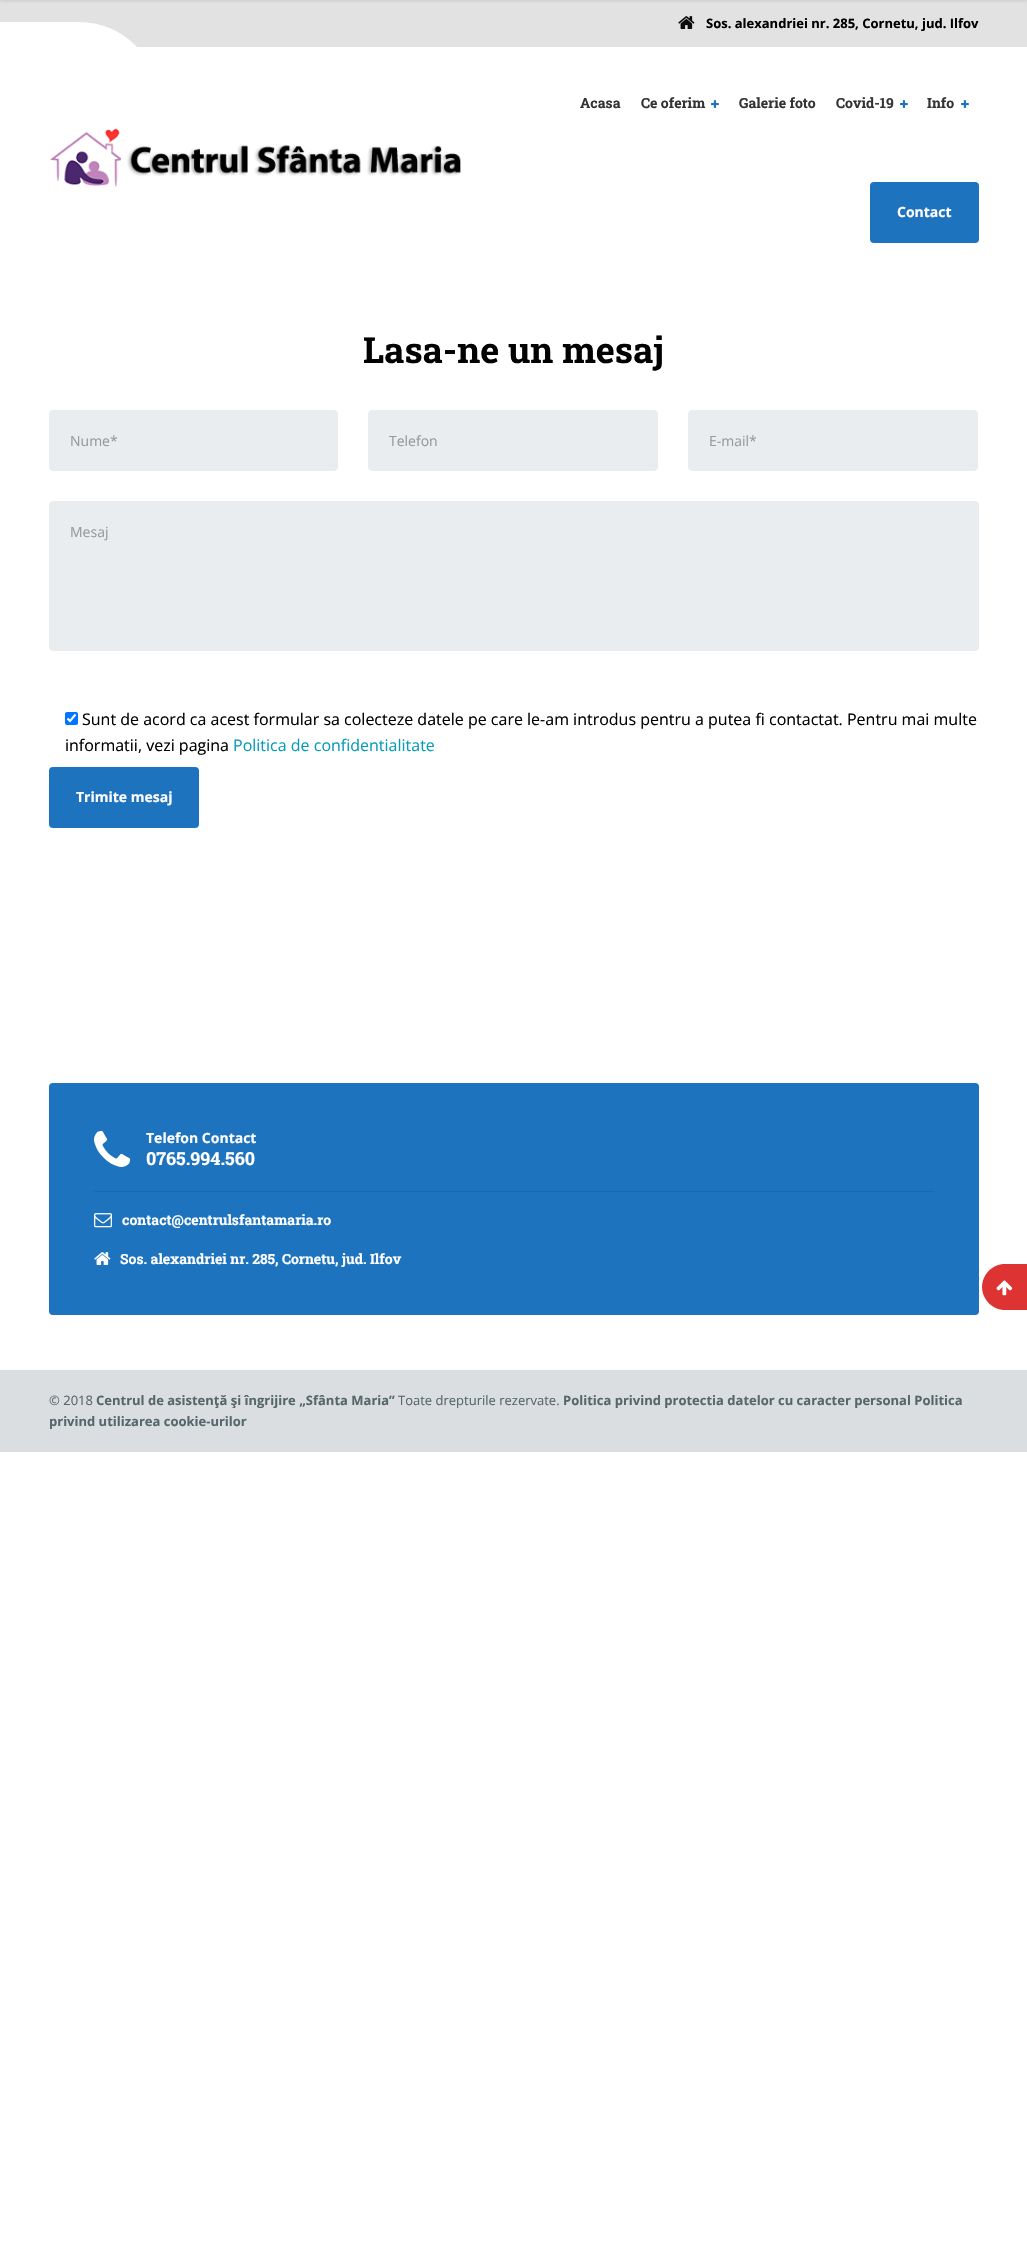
void draw(SkCanvas* canvas) {
	SkPaint fill;
	fill.setAntiAlias(true);
	auto makeFont = [&](const char* family, int weight, float size, bool italic = false) {
		SkFontStyle style(weight, SkFontStyle::kNormal_Width,
			italic ? SkFontStyle::kItalic_Slant : SkFontStyle::kUpright_Slant);
		SkFont result(fontMgr->matchFamilyStyle(family, style), size);
		result.setSubpixel(true);
		return result;
	};
	auto text = [&](const char* s, float x, float y, const SkFont& font) {
		canvas->drawString(s, x, y, font, fill);
	};
	auto box = [&](float l, float t, float r, float b) {
		canvas->drawRect(SkRect::MakeLTRB(l, t, r, b), fill);
	};
	auto roundBox = [&](float l, float t, float r, float b, float radius) {
		canvas->drawRoundRect(SkRect::MakeLTRB(l, t, r, b), radius, radius, fill);
	};
	auto picture = [&](const char* path, float l, float t, float r, float b) {
		auto image = SkImages::DeferredFromEncodedData(SkData::MakeFromFileName(path));
		canvas->drawImageRect(image, SkRect::MakeLTRB(l, t, r, b), SkSamplingOptions());
	};
	canvas->clear(0xFFFFFFFF);
	fill.setColor(0xFFE2E2E2);
	box(0, 0, 1027, 47);
	fill.setColor(0x1A000000);
	fill.setMaskFilter(SkMaskFilter::MakeBlur(kNormal_SkBlurStyle, 1.5f));
	canvas->drawRect(SkRect::MakeLTRB(0, -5, 1027, 1), fill);
	fill.setMaskFilter(nullptr);
	picture("image0.png", 678, 16, 695, 29);
	fill.setColor(0xFFFFFFFF);
	box(0, 22, 79, 47);
	canvas->drawCircle(79, 102, 80, fill);
	picture("image1.png", 711, 100, 719, 108);
	picture("image1.png", 900, 100, 908, 108);
	picture("image1.png", 961, 100, 969, 108);
	fill.setColor(0xFF1E73BE);
	canvas->drawRoundRect(SkRect::MakeLTRB(871, 183, 978, 242), 3, 3, fill);
	fill.setStyle(SkPaint::kStroke_Style);
	fill.setStrokeWidth(2);
	canvas->drawRoundRect(SkRect::MakeLTRB(871, 183, 978, 242), 3, 3, fill);
	picture("image2.png", 49, 128, 462, 187);
	fill.setStyle(SkPaint::kFill_Style);
	fill.setColor(0xFFE9EDF0);
	canvas->drawRoundRect(SkRect::MakeLTRB(49.5f, 410.5f, 337.5f, 470.5f), 3.5f, 3.5f, fill);
	fill.setStyle(SkPaint::kStroke_Style);
	fill.setStrokeWidth(1);
	canvas->drawRoundRect(SkRect::MakeLTRB(49.5f, 410.5f, 337.5f, 470.5f), 3.5f, 3.5f, fill);
	fill.setStyle(SkPaint::kFill_Style);
	canvas->drawRoundRect(SkRect::MakeLTRB(368.5f, 410.5f, 657.5f, 470.5f), 3.5f, 3.5f, fill);
	fill.setStyle(SkPaint::kStroke_Style);
	canvas->drawRoundRect(SkRect::MakeLTRB(368.5f, 410.5f, 657.5f, 470.5f), 3.5f, 3.5f, fill);
	fill.setStyle(SkPaint::kFill_Style);
	canvas->drawRoundRect(SkRect::MakeLTRB(688.5f, 410.5f, 977.5f, 470.5f), 3.5f, 3.5f, fill);
	fill.setStyle(SkPaint::kStroke_Style);
	canvas->drawRoundRect(SkRect::MakeLTRB(688.5f, 410.5f, 977.5f, 470.5f), 3.5f, 3.5f, fill);
	fill.setStyle(SkPaint::kFill_Style);
	canvas->drawRoundRect(SkRect::MakeLTRB(49.5f, 501.5f, 978.5f, 650.5f), 3.5f, 3.5f, fill);
	fill.setStyle(SkPaint::kStroke_Style);
	canvas->drawRoundRect(SkRect::MakeLTRB(49.5f, 501.5f, 978.5f, 650.5f), 3.5f, 3.5f, fill);
	fill.setStyle(SkPaint::kFill_Style);
	fill.setColor(0xFF0075FF);
	roundBox(65, 712, 78, 725, 2);
	fill.setStyle(SkPaint::kStroke_Style);
	fill.setStrokeWidth(2.1f);
	fill.setColor(0xFFFFFFFF);
	canvas->drawPath(SkPathBuilder().moveTo(67.5f, 718.5f).lineTo(70, 721).lineTo(75.5f, 714.5f).detach(), fill);
	fill.setStyle(SkPaint::kFill_Style);
	fill.setColor(0xFF1E73BE);
	canvas->drawRoundRect(SkRect::MakeLTRB(50, 768, 198, 827), 3, 3, fill);
	fill.setStyle(SkPaint::kStroke_Style);
	fill.setStrokeWidth(2);
	canvas->drawRoundRect(SkRect::MakeLTRB(50, 768, 198, 827), 3, 3, fill);
	fill.setStyle(SkPaint::kFill_Style);
	roundBox(49, 1083, 979, 1315, 4);
	fill.setColor(0xFF1B68AB);
	box(94, 1191, 934, 1192);
	picture("image3.png", 94, 1130, 131, 1167);
	picture("image4.png", 94, 1213, 112, 1228);
	picture("image5.png", 94, 1252, 111, 1265);
	fill.setColor(0xFFDD3333);
	canvas->drawPath(SkPathBuilder().moveTo(1005, 1264).lineTo(1027, 1264).lineTo(1027, 1310).lineTo(1005, 1310).cubicTo(992.5f, 1310, 982, 1299.5f, 982, 1287).cubicTo(982, 1274.5f, 992.5f, 1264, 1005, 1264).close().detach(), fill);
	picture("image6.png", 996, 1280, 1013, 1296);
	fill.setColor(0xFFDBDEE0);
	box(0, 1370, 1027, 1452);
	auto font1 = makeFont("Open Sans", 700, 13);
	fill.setColor(0xFF000000);
	text("Sos. alexandriei nr. 285, Cornetu, jud. Ilfov", 706, 28, font1);
	auto font2 = makeFont("Roboto Slab", 700, 14);
	fill.setColor(0xFF333333);
	text("Acasa", 580, 108, font2);
	text("Ce oferim", 641, 108, font2);
	text("Galerie foto", 739, 108, font2);
	text("Covid-19", 836, 108, font2);
	text("Info", 927, 108, font2);
	auto font3 = makeFont("Open Sans", 700, 14);
	fill.setColor(0xFFFFFFFF);
	text("Contact", 897, 217, font3);
	auto font4 = makeFont("Roboto Slab", 700, 36);
	fill.setColor(0xFF000000);
	text("Lasa-ne un mesaj", 363, 363, font4);
	auto font5 = makeFont("Open Sans", 400, 14);
	fill.setColor(0xFF999999);
	text("Nume*", 70, 446, font5);
	text("Telefon", 389, 446, font5);
	text("E-mail*", 709, 446, font5);
	text("Mesaj", 70, 537, font5);
	auto font6 = makeFont("Open Sans", 400, 16);
	fill.setColor(0xFF000000);
	text("Sunt de acord ca acest formular sa colecteze datele pe care le-am introdus pentru a putea fi contactat. Pentru mai multe", 82, 725, font6);
	text("informatii, vezi pagina", 65, 751, font6);
	fill.setColor(0xFF079BBB);
	text("Politica de confidentialitate", 233, 751, font6);
	fill.setColor(0xFFFFFFFF);
	text("Trimite mesaj", 76, 802, font3);
	text("Telefon Contact", 146, 1143, font3);
	auto font7 = makeFont("Roboto Slab", 700, 18);
	text("0765.994.560", 146, 1165, font7);
	text("contact@centrulsfantamaria.ro", 122, 1225, font2);
	text("Sos. alexandriei nr. 285, Cornetu, jud. Ilfov", 120, 1264, font2);
	auto font8 = makeFont("Open Sans", 400, 13);
	fill.setColor(0xFF56676B);
	text("© 2018", 49, 1405, font8);
	text("Centrul de asistenţă şi îngrijire „Sfânta Maria”", 96, 1405, font1);
	text("Toate drepturile rezervate.", 398, 1405, font8);
	text("Politica privind protectia datelor cu caracter personal Politica", 563, 1405, font1);
	text("privind utilizarea cookie-urilor", 49, 1426, font1);
}
